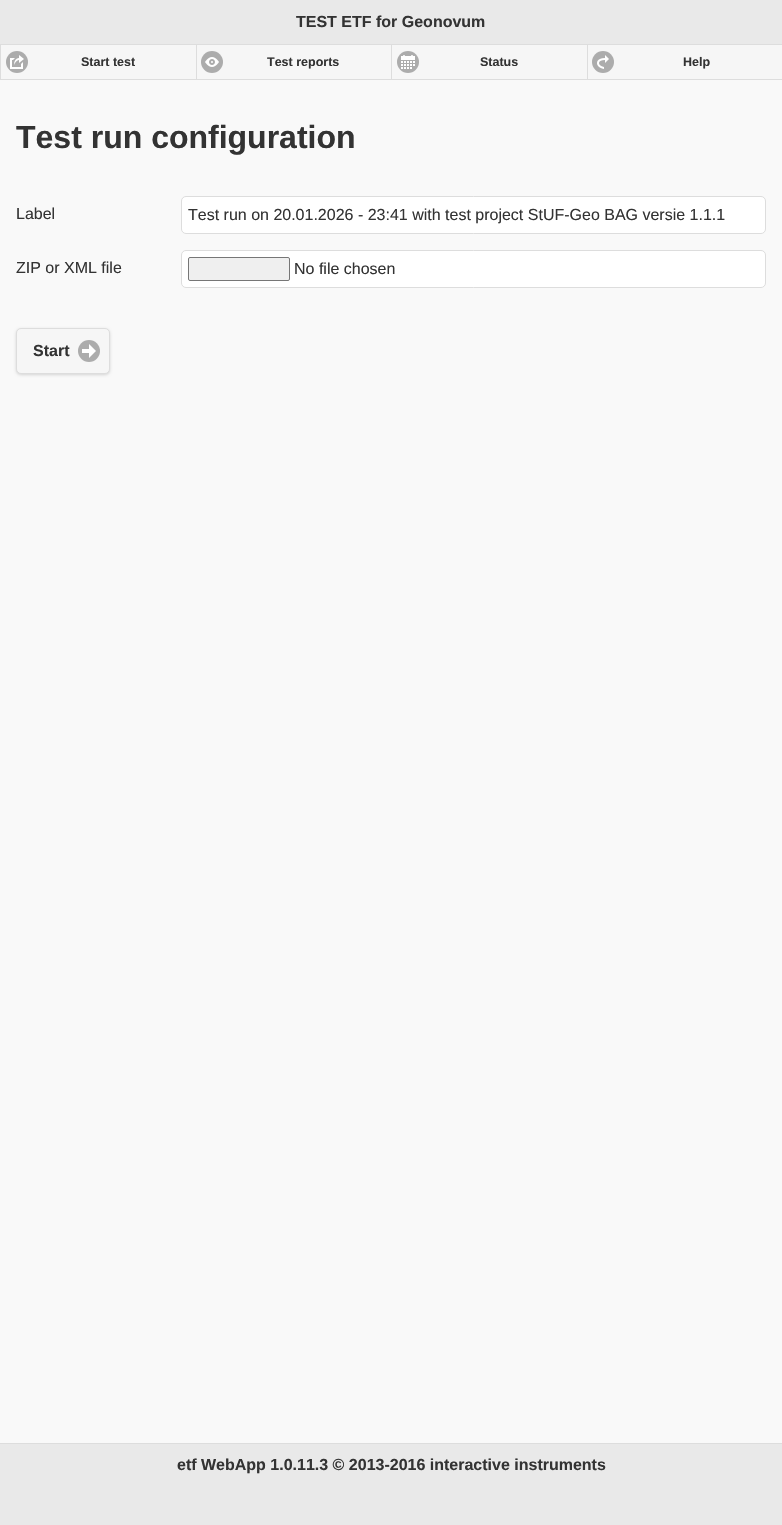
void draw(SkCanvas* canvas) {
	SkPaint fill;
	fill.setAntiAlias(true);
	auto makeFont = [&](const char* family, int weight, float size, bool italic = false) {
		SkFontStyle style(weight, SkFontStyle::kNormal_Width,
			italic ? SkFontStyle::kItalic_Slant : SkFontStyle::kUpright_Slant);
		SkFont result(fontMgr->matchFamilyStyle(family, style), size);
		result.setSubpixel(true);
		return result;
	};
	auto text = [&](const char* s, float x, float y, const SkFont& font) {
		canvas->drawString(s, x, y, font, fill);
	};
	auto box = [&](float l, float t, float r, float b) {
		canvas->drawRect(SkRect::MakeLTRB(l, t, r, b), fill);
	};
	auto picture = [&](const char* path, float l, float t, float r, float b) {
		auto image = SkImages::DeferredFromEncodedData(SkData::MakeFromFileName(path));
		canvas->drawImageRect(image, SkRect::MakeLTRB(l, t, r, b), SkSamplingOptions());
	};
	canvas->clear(0xFFF9F9F9);
	fill.setColor(0xFFE9E9E9);
	box(0, 0, 782, 44);
	fill.setColor(0xFFDDDDDD);
	box(0, 79, 782, 80);
	fill.setColor(0xFFF6F6F6);
	box(1, 45, 196, 79);
	fill.setColor(0xFFDDDDDD);
	box(0, 44, 782, 45);
	box(0, 44, 1, 79);
	fill.setColor(0xFFACACAC);
	canvas->drawCircle(17, 62, 11, fill);
	picture("image0.png", 10, 55, 24, 69);
	fill.setColor(0xFFF6F6F6);
	box(197, 45, 391, 79);
	fill.setColor(0xFFDDDDDD);
	box(196, 44, 197, 79);
	fill.setColor(0xFFACACAC);
	canvas->drawCircle(212, 62, 11, fill);
	picture("image1.png", 205, 57, 219, 67);
	fill.setColor(0xFFF6F6F6);
	box(392, 45, 587, 79);
	fill.setColor(0xFFDDDDDD);
	box(391, 44, 392, 79);
	fill.setColor(0xFFACACAC);
	canvas->drawCircle(408, 62, 11, fill);
	picture("image2.png", 401, 55, 415, 69);
	fill.setColor(0xFFF6F6F6);
	box(588, 45, 782, 79);
	fill.setColor(0xFFDDDDDD);
	box(587, 44, 588, 79);
	fill.setColor(0xFFACACAC);
	canvas->drawCircle(603, 62, 11, fill);
	picture("image3.png", 597, 55, 609, 69);
	fill.setColor(0xFFFFFFFF);
	canvas->drawRoundRect(SkRect::MakeLTRB(181.5f, 196.5f, 765.5f, 233.5f), 4.5f, 4.5f, fill);
	fill.setStyle(SkPaint::kStroke_Style);
	fill.setStrokeWidth(1);
	fill.setColor(0xFFDDDDDD);
	canvas->drawRoundRect(SkRect::MakeLTRB(181.5f, 196.5f, 765.5f, 233.5f), 4.5f, 4.5f, fill);
	fill.setStyle(SkPaint::kFill_Style);
	fill.setColor(0xFFFFFFFF);
	canvas->drawRoundRect(SkRect::MakeLTRB(181.5f, 250.5f, 765.5f, 287.5f), 4.5f, 4.5f, fill);
	fill.setStyle(SkPaint::kStroke_Style);
	fill.setColor(0xFFDDDDDD);
	canvas->drawRoundRect(SkRect::MakeLTRB(181.5f, 250.5f, 765.5f, 287.5f), 4.5f, 4.5f, fill);
	fill.setStyle(SkPaint::kFill_Style);
	fill.setColor(0xFFEFEFEF);
	canvas->drawRoundRect(SkRect::MakeLTRB(188.5f, 257.5f, 289.5f, 280.5f), 1.5f, 1.5f, fill);
	fill.setStyle(SkPaint::kStroke_Style);
	fill.setColor(0xFF767676);
	canvas->drawRoundRect(SkRect::MakeLTRB(188.5f, 257.5f, 289.5f, 280.5f), 1.5f, 1.5f, fill);
	fill.setStyle(SkPaint::kFill_Style);
	fill.setColor(0x26000000);
	fill.setMaskFilter(SkMaskFilter::MakeBlur(kNormal_SkBlurStyle, 1.5f));
	canvas->drawRoundRect(SkRect::MakeLTRB(16, 329, 110, 375), 5, 5, fill);
	fill.setMaskFilter(nullptr);
	fill.setColor(0xFFF6F6F6);
	canvas->drawRoundRect(SkRect::MakeLTRB(16.5f, 328.5f, 109.5f, 373.5f), 4.5f, 4.5f, fill);
	fill.setStyle(SkPaint::kStroke_Style);
	fill.setColor(0xFFDDDDDD);
	canvas->drawRoundRect(SkRect::MakeLTRB(16.5f, 328.5f, 109.5f, 373.5f), 4.5f, 4.5f, fill);
	fill.setStyle(SkPaint::kFill_Style);
	fill.setColor(0xFFACACAC);
	canvas->drawCircle(89, 351, 11, fill);
	picture("image4.png", 82, 344, 96, 358);
	fill.setColor(0xFFE9E9E9);
	box(0, 1444, 782, 1525);
	fill.setColor(0xFFDDDDDD);
	box(0, 1443, 782, 1444);
	auto font1 = makeFont("Liberation Sans", 700, 16);
	fill.setColor(0xFF333333);
	text("TEST ETF for Geonovum", 296, 27, font1);
	auto font2 = makeFont("Liberation Sans", 700, 12.5f);
	text("Start test", 81, 66, font2);
	text("Test reports", 267, 66, font2);
	text("Status", 480, 66, font2);
	text("Help", 683, 66, font2);
	auto font3 = makeFont("Liberation Sans", 700, 32);
	text("Test run configuration", 16, 148, font3);
	auto font4 = makeFont("Liberation Sans", 400, 16);
	text("Label", 16, 219, font4);
	text("Test run on 20.01.2026 - 23:41 with test project StUF-Geo BAG versie 1.1.1", 188, 220, font4);
	text("ZIP or XML file", 16, 273, font4);
	text("No file chosen", 294, 274, font4);
	text("Start", 33, 356, font1);
	text("etf WebApp 1.0.11.3 © 2013-2016 interactive instruments", 177, 1470, font1);
}
